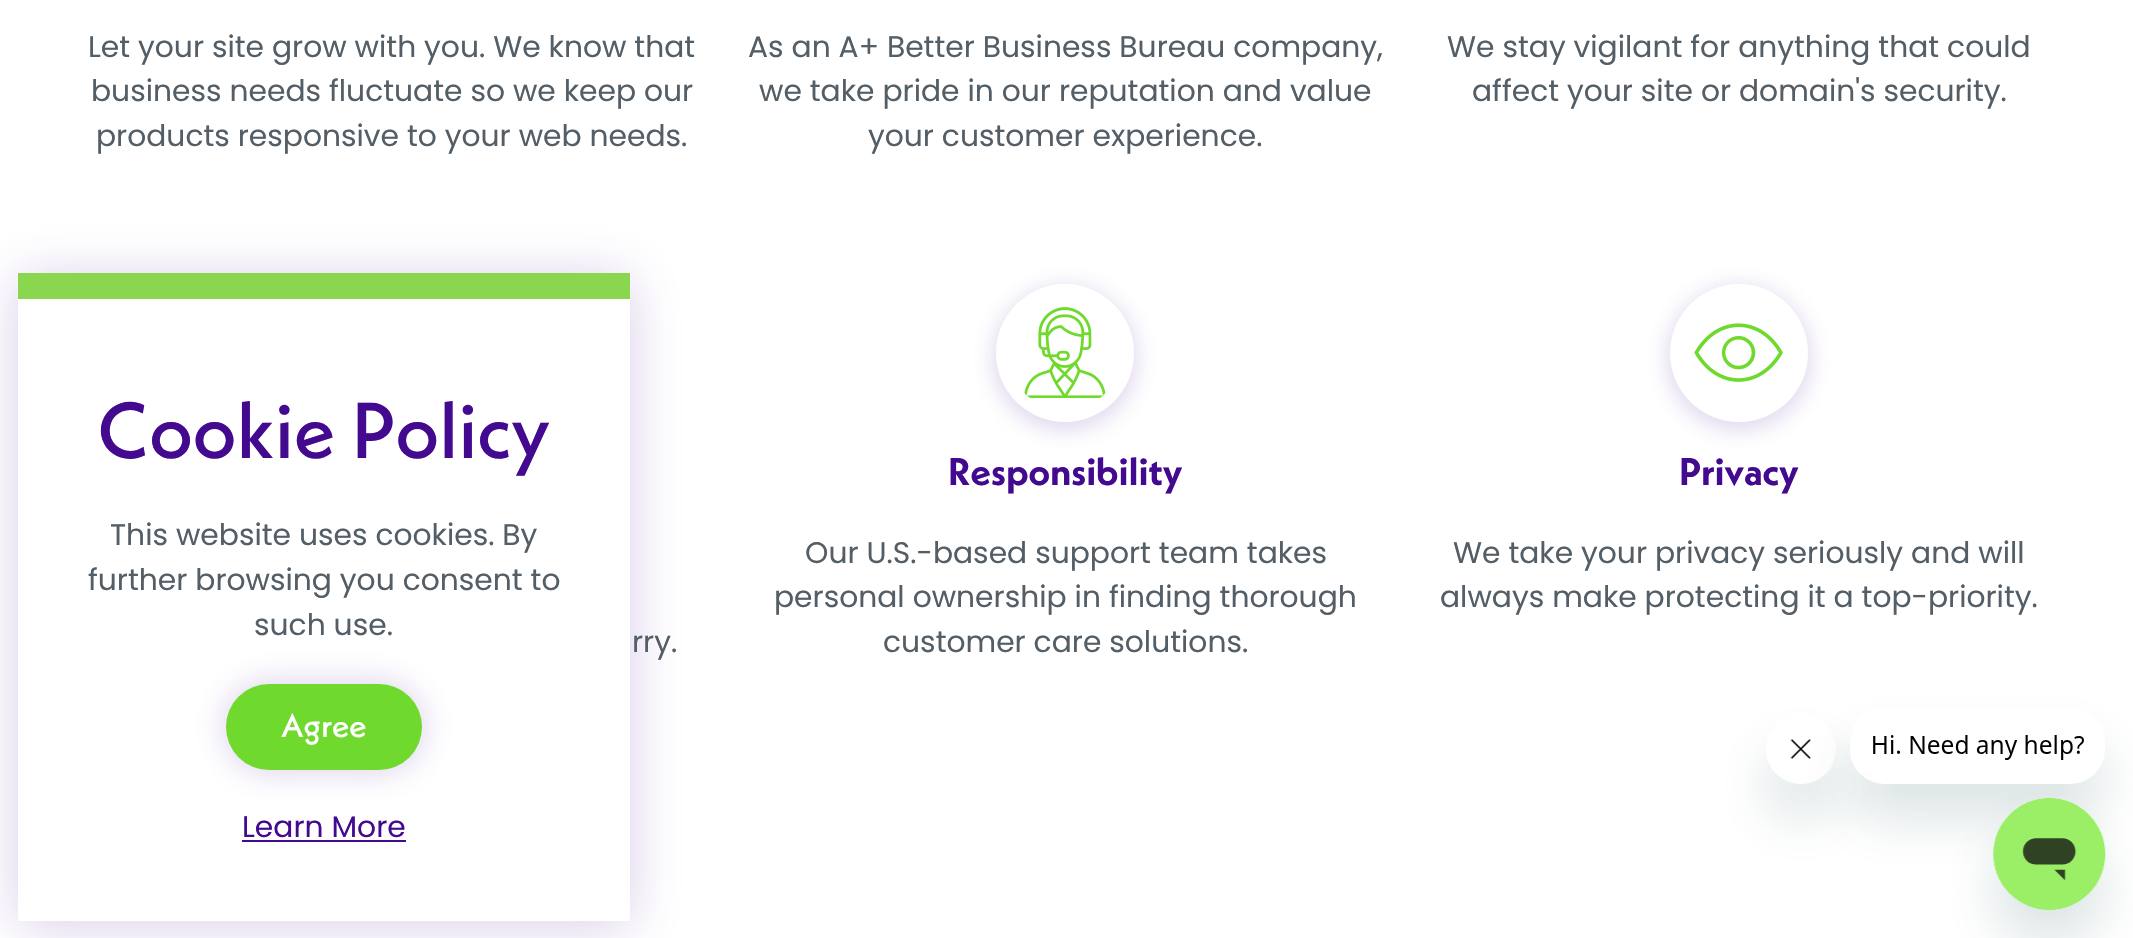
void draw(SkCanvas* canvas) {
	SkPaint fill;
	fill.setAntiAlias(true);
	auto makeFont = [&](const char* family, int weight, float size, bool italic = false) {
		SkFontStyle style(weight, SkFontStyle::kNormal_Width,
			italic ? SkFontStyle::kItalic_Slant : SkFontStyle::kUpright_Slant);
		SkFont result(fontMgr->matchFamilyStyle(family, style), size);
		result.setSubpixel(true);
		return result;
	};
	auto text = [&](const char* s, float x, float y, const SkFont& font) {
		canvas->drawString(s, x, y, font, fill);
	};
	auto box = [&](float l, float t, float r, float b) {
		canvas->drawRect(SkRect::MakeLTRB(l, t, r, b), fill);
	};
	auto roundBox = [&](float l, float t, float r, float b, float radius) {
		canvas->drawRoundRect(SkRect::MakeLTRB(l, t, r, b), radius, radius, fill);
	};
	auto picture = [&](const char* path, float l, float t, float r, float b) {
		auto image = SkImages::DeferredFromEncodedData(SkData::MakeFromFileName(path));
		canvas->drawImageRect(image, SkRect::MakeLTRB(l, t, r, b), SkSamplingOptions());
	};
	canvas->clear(0xFFFFFFFF);
	fill.setColor(0x33430A90);
	fill.setMaskFilter(SkMaskFilter::MakeBlur(kNormal_SkBlurStyle, 13));
	canvas->drawRoundRect(SkRect::MakeLTRB(996, 289, 1134, 427), 69, 69, fill);
	fill.setMaskFilter(nullptr);
	fill.setColor(0xFFFFFFFF);
	canvas->drawCircle(1065, 353, 69, fill);
	picture("image0.png", 1024, 307, 1106, 398);
	fill.setColor(0x33430A90);
	fill.setMaskFilter(SkMaskFilter::MakeBlur(kNormal_SkBlurStyle, 13));
	canvas->drawRoundRect(SkRect::MakeLTRB(1670, 289, 1808, 427), 69, 69, fill);
	fill.setMaskFilter(nullptr);
	fill.setColor(0xFFFFFFFF);
	canvas->drawCircle(1739, 353, 69, fill);
	picture("image1.png", 1693, 322, 1783, 383);
	fill.setColor(0x33430A90);
	fill.setMaskFilter(SkMaskFilter::MakeBlur(kNormal_SkBlurStyle, 26));
	canvas->drawRect(SkRect::MakeLTRB(18, 278, 630, 926), fill);
	fill.setMaskFilter(nullptr);
	fill.setColor(0xFFFFFFFF);
	box(18, 299, 630, 921);
	fill.setColor(0xFF8AD64E);
	box(18, 273, 630, 299);
	fill.setColor(0x33430A90);
	fill.setMaskFilter(SkMaskFilter::MakeBlur(kNormal_SkBlurStyle, 17.5f));
	canvas->drawRoundRect(SkRect::MakeLTRB(226, 684, 422, 770), 43, 43, fill);
	fill.setMaskFilter(nullptr);
	fill.setColor(0xFF70D92E);
	roundBox(226, 684, 422, 770, 43);
	fill.setColor(0xFF430A90);
	box(242, 840, 406, 842);
	canvas->save();
	canvas->clipPath(SkPathBuilder(SkPathFillType::kEvenOdd).moveTo(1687, 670).lineTo(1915, 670).lineTo(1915, 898).lineTo(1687, 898).close().moveTo(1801, 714).cubicTo(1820.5f, 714, 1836, 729.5f, 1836, 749).cubicTo(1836, 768.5f, 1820.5f, 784, 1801, 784).cubicTo(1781.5f, 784, 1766, 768.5f, 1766, 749).cubicTo(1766, 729.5f, 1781.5f, 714, 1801, 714).close().detach(), true);
	fill.setColor(0x2617494D);
	fill.setMaskFilter(SkMaskFilter::MakeBlur(kNormal_SkBlurStyle, 26));
	canvas->drawRoundRect(SkRect::MakeLTRB(1766, 749, 1836, 819), 35, 35, fill);
	fill.setMaskFilter(nullptr);
	canvas->restore();
	picture("image3.png", 1790, 739, 1811, 759);
	canvas->save();
	canvas->clipPath(SkPathBuilder(SkPathFillType::kEvenOdd).moveTo(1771, 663).lineTo(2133, 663).lineTo(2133, 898).lineTo(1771, 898).close().moveTo(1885, 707).lineTo(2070, 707).cubicTo(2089.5f, 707, 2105, 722.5f, 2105, 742).lineTo(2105, 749).cubicTo(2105, 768.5f, 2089.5f, 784, 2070, 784).lineTo(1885, 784).cubicTo(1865.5f, 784, 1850, 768.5f, 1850, 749).lineTo(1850, 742).cubicTo(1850, 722.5f, 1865.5f, 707, 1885, 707).close().detach(), true);
	fill.setMaskFilter(SkMaskFilter::MakeBlur(kNormal_SkBlurStyle, 26));
	canvas->drawRoundRect(SkRect::MakeLTRB(1850, 742, 2105, 819), 35, 35, fill);
	fill.setMaskFilter(nullptr);
	canvas->restore();
	picture("image2.png", 1851, 735, 2084, 773);
	fill.setMaskFilter(SkMaskFilter::MakeBlur(kNormal_SkBlurStyle, 26));
	canvas->drawRoundRect(SkRect::MakeLTRB(1993, 833, 2105, 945), 56, 56, fill);
	fill.setMaskFilter(nullptr);
	picture("image4.png", 1993, 798, 2106, 910);
	auto font1 = makeFont("Poppins", 400, 29.75f);
	fill.setColor(0xFF535E66);
	text("Let your site grow with you. We know that", 88, 57, font1);
	text("business needs fluctuate so we keep our", 91, 101, font1);
	text("products responsive to your web needs.", 96, 146, font1);
	text("As an A+ Better Business Bureau company,", 748, 57, font1);
	text("we take pride in our reputation and value", 759, 101, font1);
	text("your customer experience.", 868, 146, font1);
	text("We stay vigilant for anything that could", 1447, 57, font1);
	text("affect your site or domain's security.", 1472, 101, font1);
	auto font2 = makeFont("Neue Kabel", 700, 38.5f);
	fill.setColor(0xFF430A90);
	text("Responsibility", 948, 485, font2);
	fill.setColor(0xFF535E66);
	text("Our U.S.-based support team takes", 805, 563, font1);
	text("personal ownership in finding thorough", 774, 607, font1);
	text("customer care solutions.", 883, 652, font1);
	fill.setColor(0xFF430A90);
	text("Privacy", 1679, 485, font2);
	fill.setColor(0xFF535E66);
	text("We take your privacy seriously and will", 1453, 563, font1);
	text("always make protecting it a top-priority.", 1440, 607, font1);
	text("rry.", 632, 652, font1);
	auto font3 = makeFont("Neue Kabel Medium", 500, 78.75f);
	fill.setColor(0xFF430A90);
	text("Cookie Policy", 97, 458, font3);
	fill.setColor(0xFF535E66);
	text("This website uses cookies. By", 110, 545, font1);
	text("further browsing you consent to", 88, 590, font1);
	text("such use.", 254, 635, font1);
	auto font4 = makeFont("Neue Kabel Medium", 500, 33);
	fill.setColor(0xFFFFFFFF);
	text("Agree", 281, 737, font4);
	fill.setColor(0xFF430A90);
	text("Learn More", 242, 837, font1);
}
